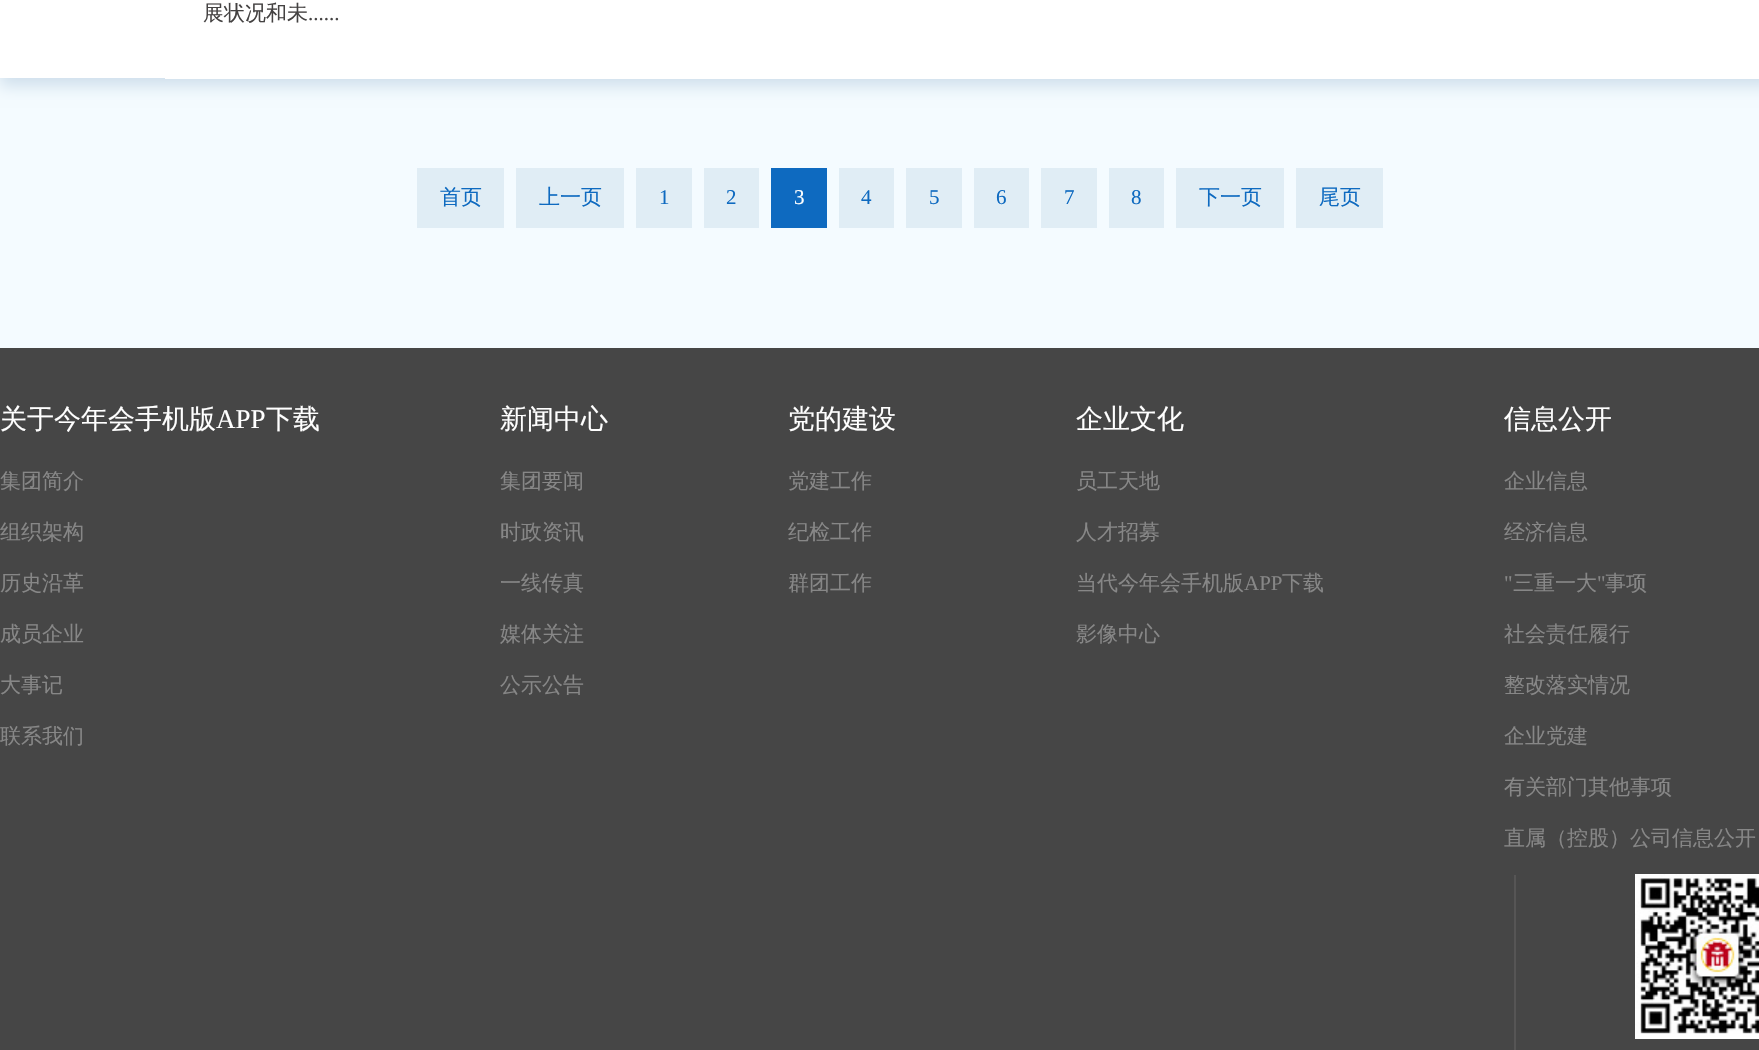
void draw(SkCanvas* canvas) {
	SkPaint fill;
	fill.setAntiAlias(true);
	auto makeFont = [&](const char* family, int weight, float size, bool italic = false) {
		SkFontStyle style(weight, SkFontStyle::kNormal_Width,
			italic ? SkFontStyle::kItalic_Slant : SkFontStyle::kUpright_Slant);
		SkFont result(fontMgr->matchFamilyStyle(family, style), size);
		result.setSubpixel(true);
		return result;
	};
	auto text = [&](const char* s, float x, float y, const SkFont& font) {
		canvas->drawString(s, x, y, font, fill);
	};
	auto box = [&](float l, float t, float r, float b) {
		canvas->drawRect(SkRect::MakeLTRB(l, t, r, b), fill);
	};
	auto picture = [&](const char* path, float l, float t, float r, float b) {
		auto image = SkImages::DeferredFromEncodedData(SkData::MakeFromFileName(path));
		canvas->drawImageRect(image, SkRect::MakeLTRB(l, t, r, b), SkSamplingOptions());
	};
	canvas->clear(0xFFF4FBFF);
	fill.setColor(0xFFCFDFEC);
	fill.setMaskFilter(SkMaskFilter::MakeBlur(kNormal_SkBlurStyle, 7.5f));
	canvas->drawRect(SkRect::MakeLTRB(0, -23, 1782, 86), fill);
	fill.setMaskFilter(nullptr);
	fill.setColor(0xFFFFFFFF);
	box(0, 0, 1759, 78);
	box(165, 78, 1759, 79);
	fill.setColor(0xFFE0EDF5);
	box(417, 168, 504, 228);
	box(516, 168, 624, 228);
	box(636, 168, 692, 228);
	box(704, 168, 759, 228);
	fill.setColor(0xFF0E6AC0);
	box(771, 168, 827, 228);
	fill.setColor(0xFFE0EDF5);
	box(839, 168, 894, 228);
	box(906, 168, 962, 228);
	box(974, 168, 1029, 228);
	box(1041, 168, 1097, 228);
	box(1109, 168, 1164, 228);
	box(1176, 168, 1284, 228);
	box(1296, 168, 1383, 228);
	fill.setColor(0xFF464646);
	box(0, 348, 1759, 1050);
	fill.setColor(0xFF565555);
	box(1514, 875, 1516, 1050);
	picture("image0.png", 1635, 874, 1759, 1039);
	auto font1 = makeFont("WenQuanYi Zen Hei", 500, 21);
	fill.setColor(0xFF444242);
	text("展状况和未", 203, 20, font1);
	auto font2 = makeFont("Liberation Serif", 400, 21);
	text("......", 308, 20, font2);
	fill.setColor(0xFF0E6AC0);
	text("首页", 440, 204, font1);
	text("上一页", 539, 204, font1);
	text("1", 659, 204, font2);
	text("2", 726, 204, font2);
	fill.setColor(0xFFFFFFFF);
	text("3", 794, 204, font2);
	fill.setColor(0xFF0E6AC0);
	text("4", 861, 204, font2);
	text("5", 929, 204, font2);
	text("6", 996, 204, font2);
	text("7", 1064, 204, font2);
	text("8", 1131, 204, font2);
	text("下一页", 1199, 204, font1);
	text("尾页", 1319, 204, font1);
	auto font3 = makeFont("WenQuanYi Zen Hei", 500, 27);
	fill.setColor(0xFFFFFFFF);
	text("关于今年会手机版", 0, 428, font3);
	auto font4 = makeFont("Liberation Serif", 400, 27);
	text("APP", 216, 428, font4);
	text("下载", 266, 428, font3);
	fill.setColor(0xFF878787);
	text("集团简介", 0, 488, font1);
	text("组织架构", 0, 539, font1);
	text("历史沿革", 0, 590, font1);
	text("成员企业", 0, 641, font1);
	text("大事记", 0, 692, font1);
	text("联系我们", 0, 743, font1);
	fill.setColor(0xFFFFFFFF);
	text("新闻中心", 500, 428, font3);
	fill.setColor(0xFF878787);
	text("集团要闻", 500, 488, font1);
	text("时政资讯", 500, 539, font1);
	text("一线传真", 500, 590, font1);
	text("媒体关注", 500, 641, font1);
	text("公示公告", 500, 692, font1);
	fill.setColor(0xFFFFFFFF);
	text("党的建设", 788, 428, font3);
	fill.setColor(0xFF878787);
	text("党建工作", 788, 488, font1);
	text("纪检工作", 788, 539, font1);
	text("群团工作", 788, 590, font1);
	fill.setColor(0xFFFFFFFF);
	text("企业文化", 1076, 428, font3);
	fill.setColor(0xFF878787);
	text("员工天地", 1076, 488, font1);
	text("人才招募", 1076, 539, font1);
	text("当代今年会手机版", 1076, 590, font1);
	text("APP", 1244, 590, font2);
	text("下载", 1282, 590, font1);
	text("影像中心", 1076, 641, font1);
	fill.setColor(0xFFFFFFFF);
	text("信息公开", 1504, 428, font3);
	fill.setColor(0xFF878787);
	text("企业信息", 1504, 488, font1);
	text("经济信息", 1504, 539, font1);
	text("\"", 1504, 590, font2);
	text("三重一大", 1513, 590, font1);
	text("\"", 1597, 590, font2);
	text("事项", 1605, 590, font1);
	text("社会责任履行", 1504, 641, font1);
	text("整改落实情况", 1504, 692, font1);
	text("企业党建", 1504, 743, font1);
	text("有关部门其他事项", 1504, 794, font1);
	text("直属（控股）公司信息公开", 1504, 845, font1);
}
